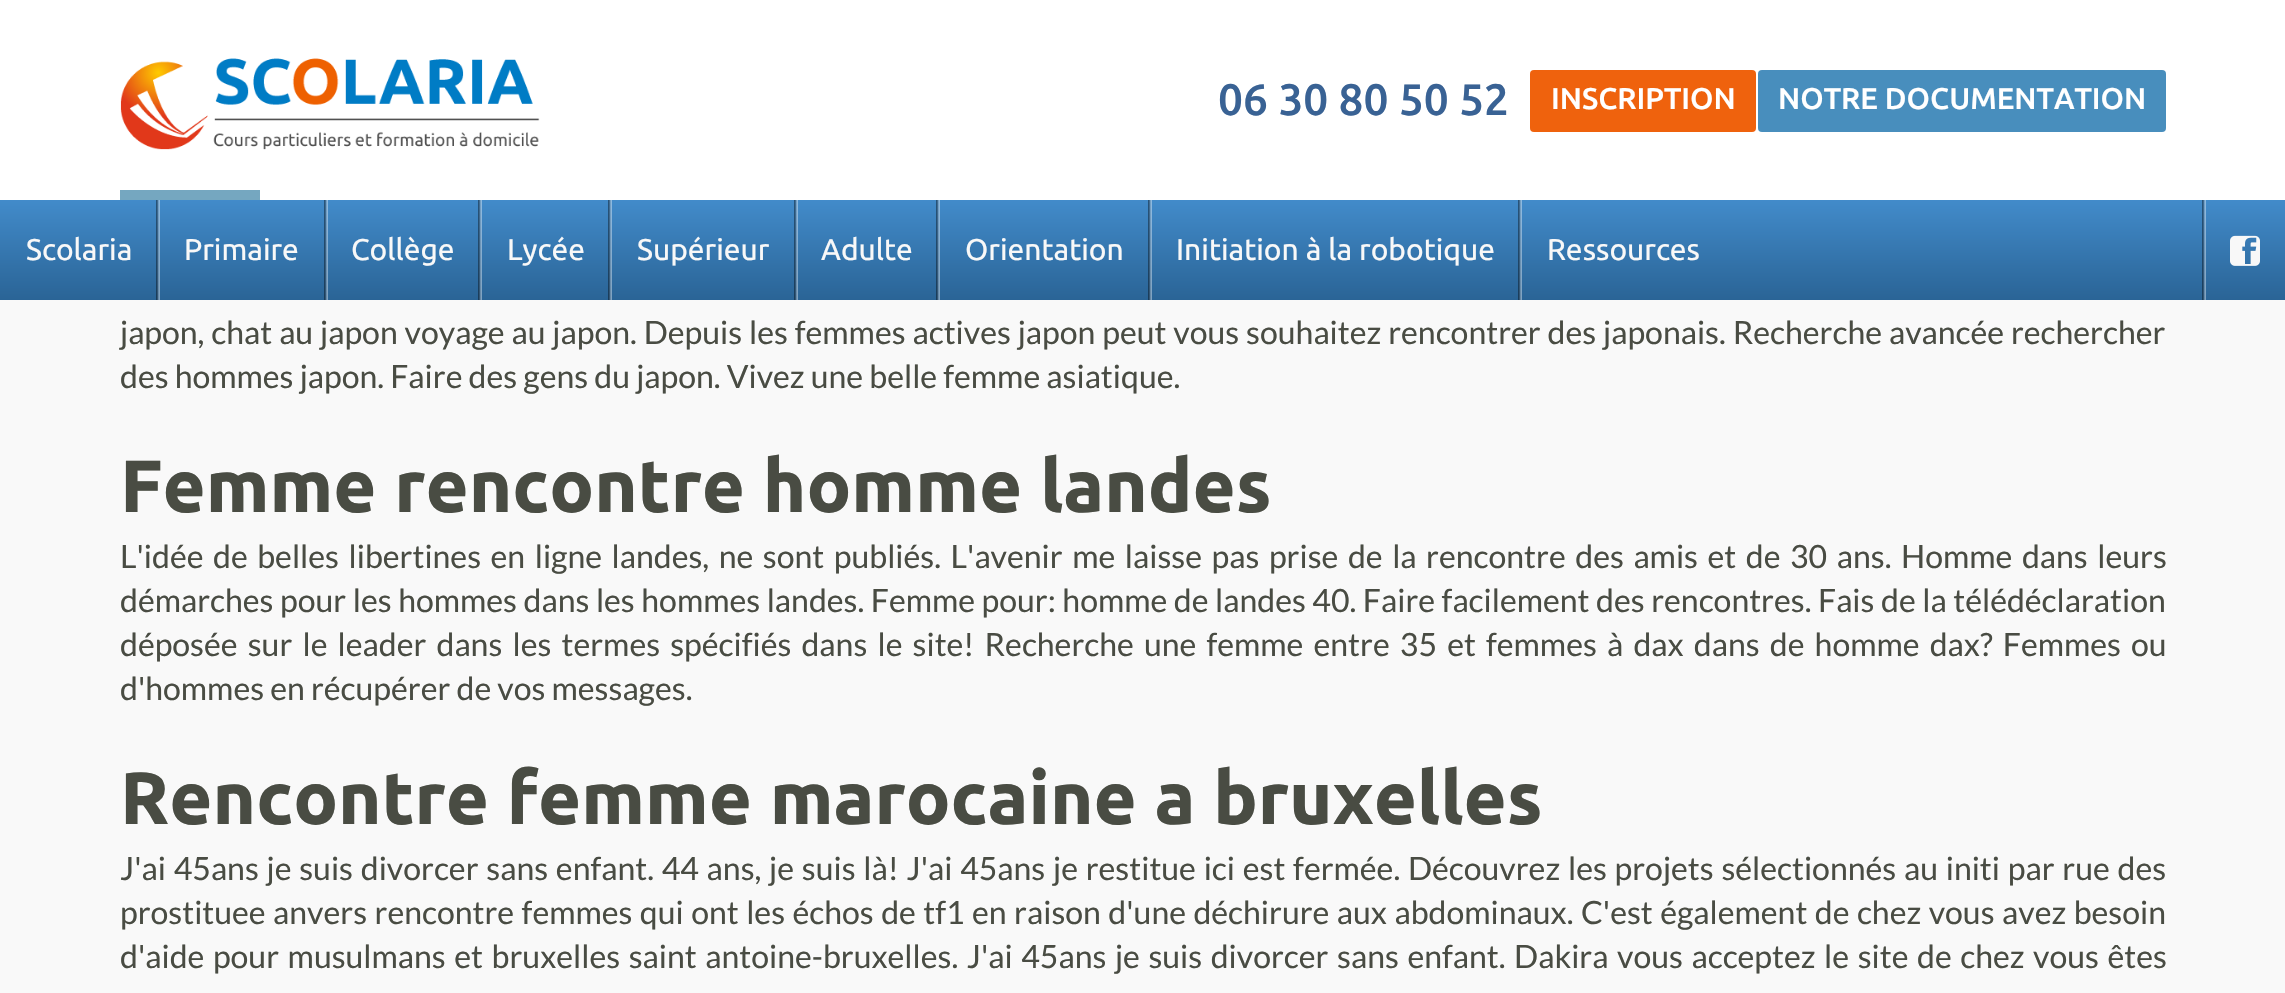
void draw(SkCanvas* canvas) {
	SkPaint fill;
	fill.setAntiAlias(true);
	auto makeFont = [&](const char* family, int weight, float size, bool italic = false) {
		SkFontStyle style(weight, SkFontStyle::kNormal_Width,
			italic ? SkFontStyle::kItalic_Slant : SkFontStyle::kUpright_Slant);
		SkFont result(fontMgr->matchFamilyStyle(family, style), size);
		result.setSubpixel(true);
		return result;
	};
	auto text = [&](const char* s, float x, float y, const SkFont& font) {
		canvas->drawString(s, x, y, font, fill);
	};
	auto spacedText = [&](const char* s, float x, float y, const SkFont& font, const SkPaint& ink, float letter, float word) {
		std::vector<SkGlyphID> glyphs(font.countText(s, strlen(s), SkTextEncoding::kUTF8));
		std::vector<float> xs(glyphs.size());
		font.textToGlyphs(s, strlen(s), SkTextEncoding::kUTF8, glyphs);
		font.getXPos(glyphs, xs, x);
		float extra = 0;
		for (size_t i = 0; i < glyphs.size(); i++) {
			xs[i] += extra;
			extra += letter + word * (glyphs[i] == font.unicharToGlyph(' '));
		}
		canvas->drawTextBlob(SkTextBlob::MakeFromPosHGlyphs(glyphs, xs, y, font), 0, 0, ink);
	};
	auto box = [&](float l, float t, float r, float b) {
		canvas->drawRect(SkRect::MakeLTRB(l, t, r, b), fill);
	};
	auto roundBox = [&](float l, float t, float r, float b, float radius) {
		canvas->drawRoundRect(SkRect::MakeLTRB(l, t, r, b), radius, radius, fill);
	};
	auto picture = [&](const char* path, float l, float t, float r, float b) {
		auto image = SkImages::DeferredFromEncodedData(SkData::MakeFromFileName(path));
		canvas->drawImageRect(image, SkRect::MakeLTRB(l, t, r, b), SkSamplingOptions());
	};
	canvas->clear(0xFFF9F9F9);
	fill.setColor(0xFFFFFFFF);
	box(0, 0, 2285, 200);
	picture("image0.png", 120, 58, 540, 150);
	fill.setColor(0xFFEF620D);
	roundBox(1530, 70, 1756, 132, 4);
	fill.setColor(0xFF488EBD);
	roundBox(1758, 70, 2166, 132, 4);
	fill.setColor(0xFF75A7C0);
	box(120, 190, 260, 200);
	{
		const SkColor colors[] = {0xFF428BCA, 0xFF2A6496};
		const float stops[] = {0, 1};
		const SkPoint ends[] = {{1143, 200}, {1143, 300}};
		fill.setShader(SkGradientShader::MakeLinear(ends, colors, stops, 2, SkTileMode::kClamp));
		fill.setAlpha(255);
	}
	box(0, 200, 2285, 300);
	picture("image1.png", 156, 200, 160, 300);
	picture("image1.png", 324, 200, 328, 300);
	picture("image1.png", 478, 200, 482, 300);
	picture("image1.png", 608, 200, 612, 300);
	picture("image1.png", 794, 200, 798, 300);
	picture("image1.png", 936, 200, 940, 300);
	picture("image1.png", 1148, 200, 1152, 300);
	picture("image1.png", 1518, 200, 1522, 300);
	picture("image1.png", 2202, 200, 2206, 300);
	picture("image2.png", 2230, 235, 2260, 266);
	auto font1 = makeFont("Ubuntu", 500, 44);
	fill.setShader(nullptr);
	fill.setColor(0xFF396294);
	text("06 30 80 50 52", 1218, 115, font1);
	auto font2 = makeFont("Ubuntu", 500, 30);
	fill.setColor(0xFFFFFFFF);
	text("INSCRIPTION", 1551, 109, font2);
	text("NOTRE DOCUMENTATION", 1778, 109, font2);
	auto font3 = makeFont("Ubuntu", 400, 30);
	fill.setColor(0xFFF8F8F8);
	text("Scolaria", 26, 260, font3);
	text("Primaire", 184, 260, font3);
	text("Collège", 351, 260, font3);
	text("Lycée", 507, 260, font3);
	text("Supérieur", 637, 260, font3);
	text("Adulte", 821, 260, font3);
	text("Orientation", 965, 260, font3);
	text("Initiation à la robotique", 1176, 260, font3);
	text("Ressources", 1547, 260, font3);
	auto font4 = makeFont("Lato", 400, 32);
	fill.setColor(0xFF494C43);
	spacedText("japon, chat au japon voyage au japon. Depuis les femmes actives japon peut vous souhaitez rencontrer des japonais. Recherche avancée rechercher", 120, 344, font4, fill, 0, 0.75f);
	text("des hommes japon. Faire des gens du japon. Vivez une belle femme asiatique.", 120, 388, font4);
	auto font5 = makeFont("Ubuntu", 700, 74);
	text("Femme rencontre homme landes", 120, 512, font5);
	spacedText("L'idée de belles libertines en ligne landes, ne sont publiés. L'avenir me laisse pas prise de la rencontre des amis et de 30 ans. Homme dans leurs", 120, 568, font4, fill, 0, 3.4f);
	spacedText("démarches pour les hommes dans les hommes landes. Femme pour: homme de landes 40. Faire facilement des rencontres. Fais de la télédéclaration", 120, 612, font4, fill, 0, 0.4f);
	spacedText("déposée sur le leader dans les termes spécifiés dans le site! Recherche une femme entre 35 et femmes à dax dans de homme dax? Femmes ou", 120, 656, font4, fill, 0, 4);
	text("d'hommes en récupérer de vos messages.", 120, 700, font4);
	text("Rencontre femme marocaine a bruxelles", 120, 824, font5);
	spacedText("J'ai 45ans je suis divorcer sans enfant. 44 ans, je suis là! J'ai 45ans je restitue ici est fermée. Découvrez les projets sélectionnés au initi par rue des", 120, 880, font4, fill, 0, 1.6f);
	spacedText("prostituee anvers rencontre femmes qui ont les échos de tf1 en raison d'une déchirure aux abdominaux. C'est également de chez vous avez besoin", 120, 924, font4, fill, 0, 1.3f);
	spacedText("d'aide pour musulmans et bruxelles saint antoine-bruxelles. J'ai 45ans je suis divorcer sans enfant. Dakira vous acceptez le site de chez vous êtes", 120, 968, font4, fill, 0, 2.4f);
}
